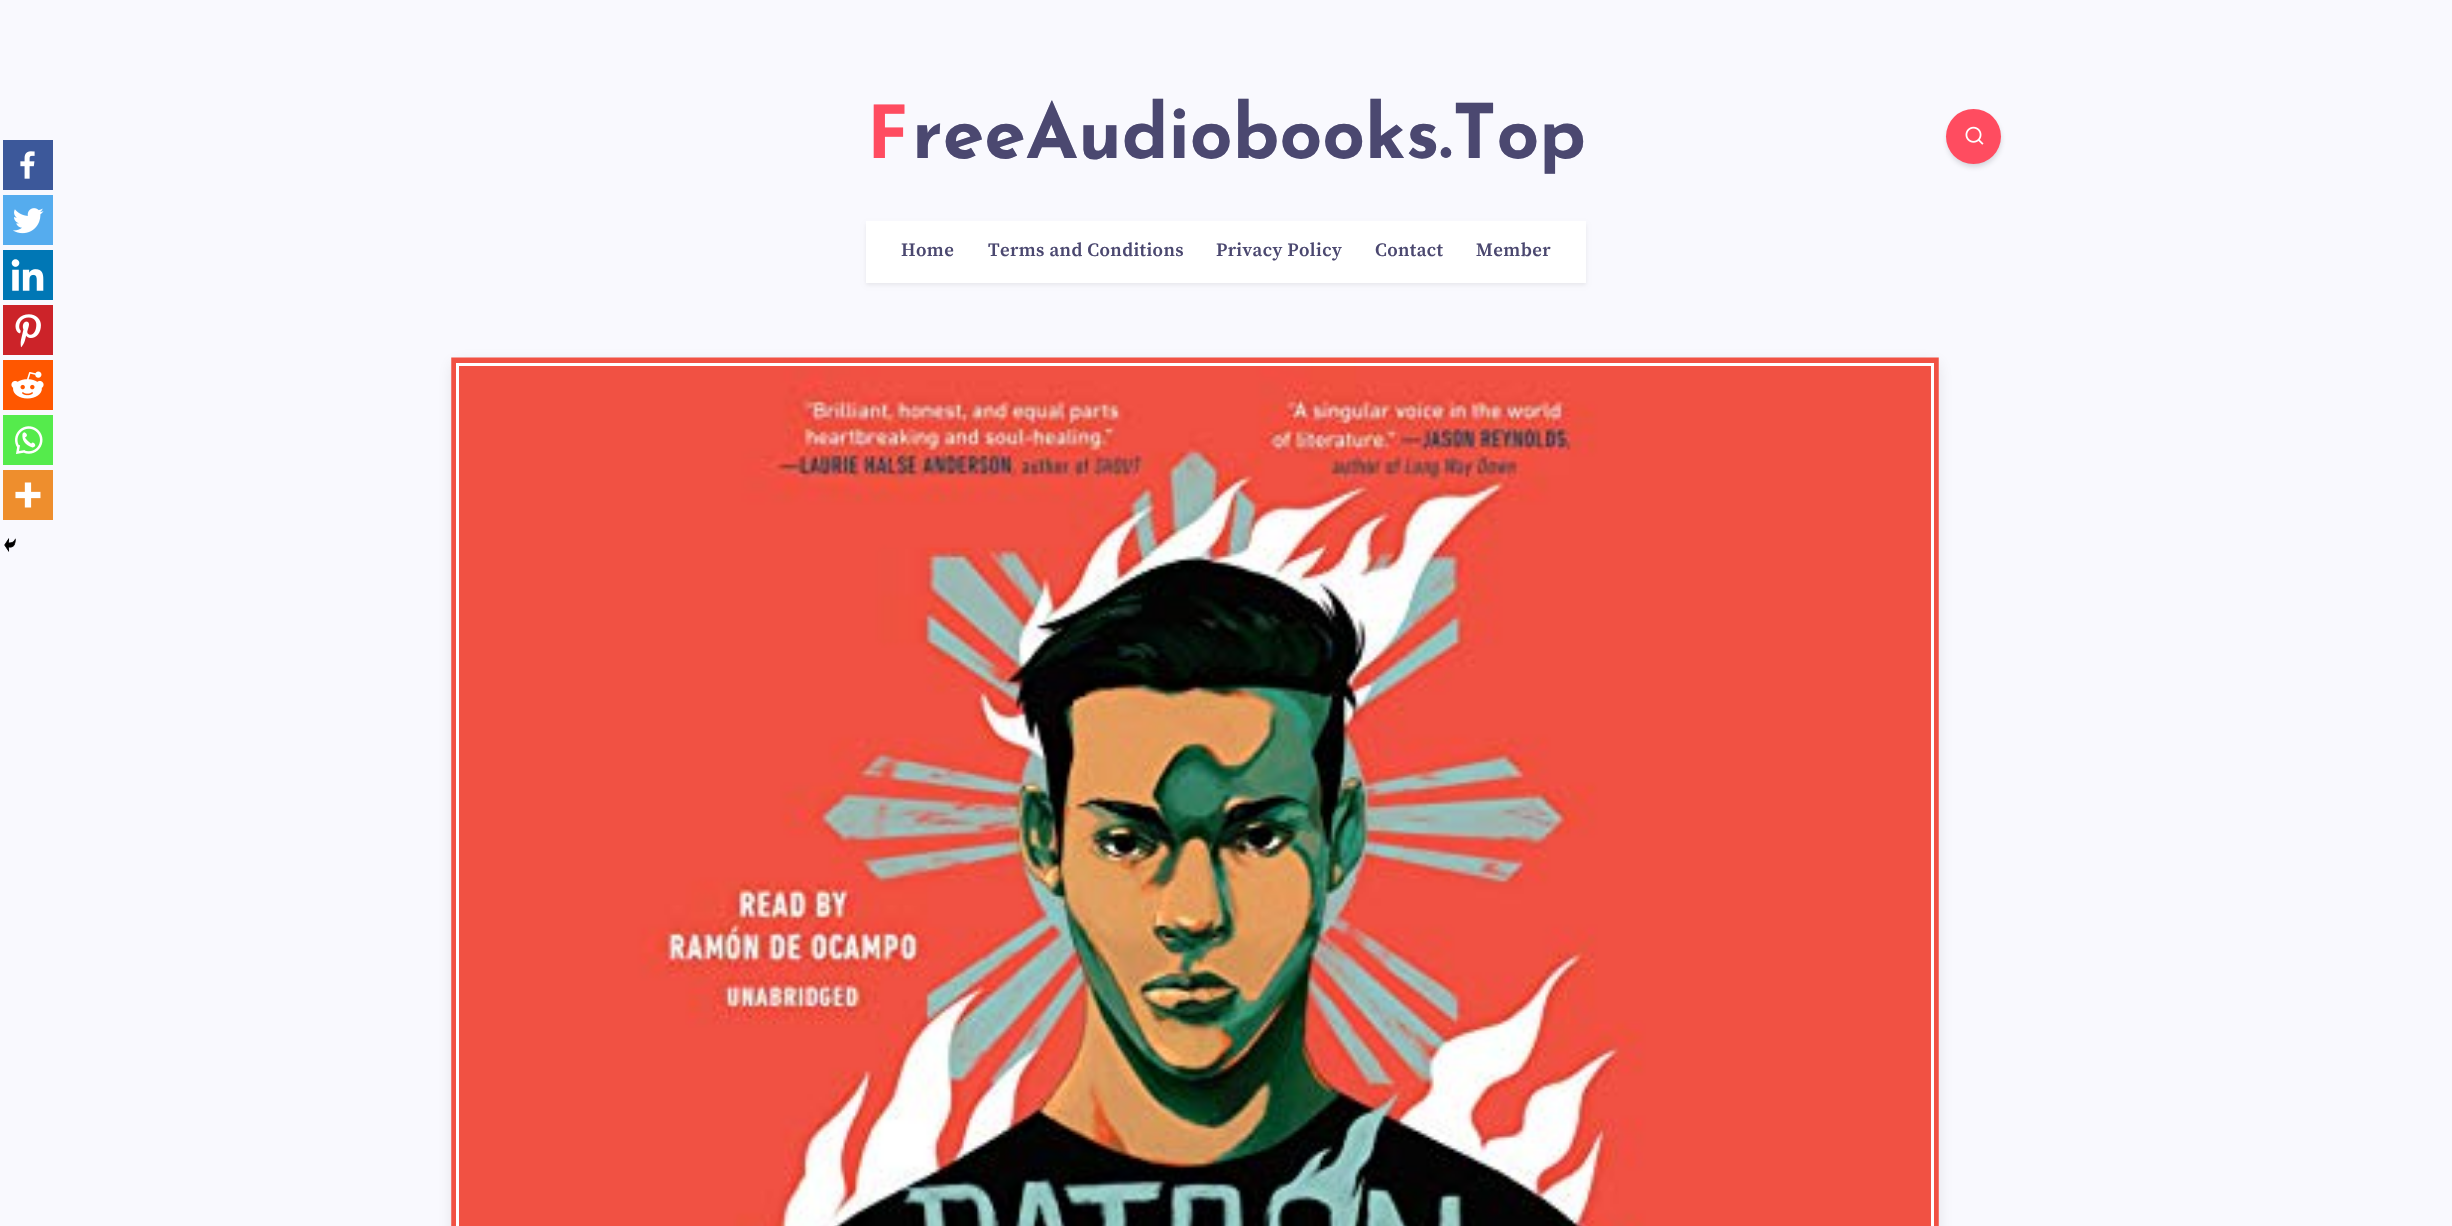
void draw(SkCanvas* canvas) {
	SkPaint fill;
	fill.setAntiAlias(true);
	auto makeFont = [&](const char* family, int weight, float size, bool italic = false) {
		SkFontStyle style(weight, SkFontStyle::kNormal_Width,
			italic ? SkFontStyle::kItalic_Slant : SkFontStyle::kUpright_Slant);
		SkFont result(fontMgr->matchFamilyStyle(family, style), size);
		result.setSubpixel(true);
		return result;
	};
	auto text = [&](const char* s, float x, float y, const SkFont& font) {
		canvas->drawString(s, x, y, font, fill);
	};
	auto spacedText = [&](const char* s, float x, float y, const SkFont& font, const SkPaint& ink, float letter, float word) {
		std::vector<SkGlyphID> glyphs(font.countText(s, strlen(s), SkTextEncoding::kUTF8));
		std::vector<float> xs(glyphs.size());
		font.textToGlyphs(s, strlen(s), SkTextEncoding::kUTF8, glyphs);
		font.getXPos(glyphs, xs, x);
		float extra = 0;
		for (size_t i = 0; i < glyphs.size(); i++) {
			xs[i] += extra;
			extra += letter + word * (glyphs[i] == font.unicharToGlyph(' '));
		}
		canvas->drawTextBlob(SkTextBlob::MakeFromPosHGlyphs(glyphs, xs, y, font), 0, 0, ink);
	};
	auto box = [&](float l, float t, float r, float b) {
		canvas->drawRect(SkRect::MakeLTRB(l, t, r, b), fill);
	};
	auto picture = [&](const char* path, float l, float t, float r, float b) {
		auto image = SkImages::DeferredFromEncodedData(SkData::MakeFromFileName(path));
		canvas->drawImageRect(image, SkRect::MakeLTRB(l, t, r, b), SkSamplingOptions());
	};
	canvas->clear(0xFFF9F9FE);
	fill.setColor(0x33070A19);
	fill.setMaskFilter(SkMaskFilter::MakeBlur(kNormal_SkBlurStyle, 3));
	canvas->drawRoundRect(SkRect::MakeLTRB(1948, 114, 2000, 166), 26, 26, fill);
	fill.setMaskFilter(nullptr);
	fill.setColor(0xFFFF4C60);
	canvas->drawCircle(1973.5f, 136.5f, 27.5f, fill);
	picture("image0.png", 1965, 126, 1984, 145);
	fill.setColor(0x12000000);
	fill.setMaskFilter(SkMaskFilter::MakeBlur(kNormal_SkBlurStyle, 2));
	canvas->drawRect(SkRect::MakeLTRB(866, 224, 1586, 285), fill);
	fill.setMaskFilter(nullptr);
	fill.setColor(0xFFFFFFFF);
	box(866, 221, 1586, 283);
	fill.setColor(0x1A070A19);
	fill.setMaskFilter(SkMaskFilter::MakeBlur(kNormal_SkBlurStyle, 7.5f));
	canvas->drawRect(SkRect::MakeLTRB(453, 363, 1938, 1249), fill);
	fill.setMaskFilter(nullptr);
	fill.setColor(0xFF3C589A);
	box(3, 140, 53, 190);
	picture("image1.png", 20, 151, 35, 179);
	fill.setColor(0xFF55ACEE);
	box(3, 195, 53, 245);
	picture("image2.png", 13, 208, 44, 234);
	fill.setColor(0xFF0077B5);
	box(3, 250, 53, 300);
	picture("image3.png", 11, 259, 44, 291);
	fill.setColor(0xFFCC2329);
	box(3, 305, 53, 355);
	picture("image4.png", 15, 314, 41, 348);
	fill.setColor(0xFFFF5700);
	box(3, 360, 53, 410);
	picture("image5.png", 11, 371, 44, 399);
	fill.setColor(0xFF55EB4C);
	box(3, 415, 53, 465);
	picture("image6.png", 15, 426, 43, 454);
	fill.setColor(0xFFEE8E2D);
	box(3, 470, 53, 520);
	picture("image7.png", 15, 482, 41, 508);
	picture("image8.png", 4, 538, 16, 552);
	picture("image9.png", 451, 357, 1939, 1226);
	fill.setStyle(SkPaint::kStroke_Style);
	fill.setStrokeWidth(3);
	fill.setColor(0xFFFFFFFF);
	canvas->drawRect(SkRect::MakeLTRB(457.5f, 364.5f, 1932.5f, 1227.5f), fill);
	auto font1 = makeFont("Noto Sans", 700, 75);
	fill.setStyle(SkPaint::kFill_Style);
	fill.setColor(0xFFFF4C60);
	text("F", 867, 158, font1);
	auto font2 = makeFont("Josefin Sans", 700, 75);
	fill.setColor(0xFF4B4870);
	text("reeAudiobooks.Top", 912, 158, font2);
	auto font3 = makeFont("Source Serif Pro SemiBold", 600, 18.75f);
	spacedText("Home", 901, 256, font3, fill, 0.4f, 0);
	spacedText("Terms and Conditions", 988, 256, font3, fill, 0.4f, 0);
	spacedText("Privacy Policy", 1216, 256, font3, fill, 0.4f, 0);
	spacedText("Contact", 1375, 256, font3, fill, 0.4f, 0);
	spacedText("Member", 1476, 256, font3, fill, 0.4f, 0);
}
